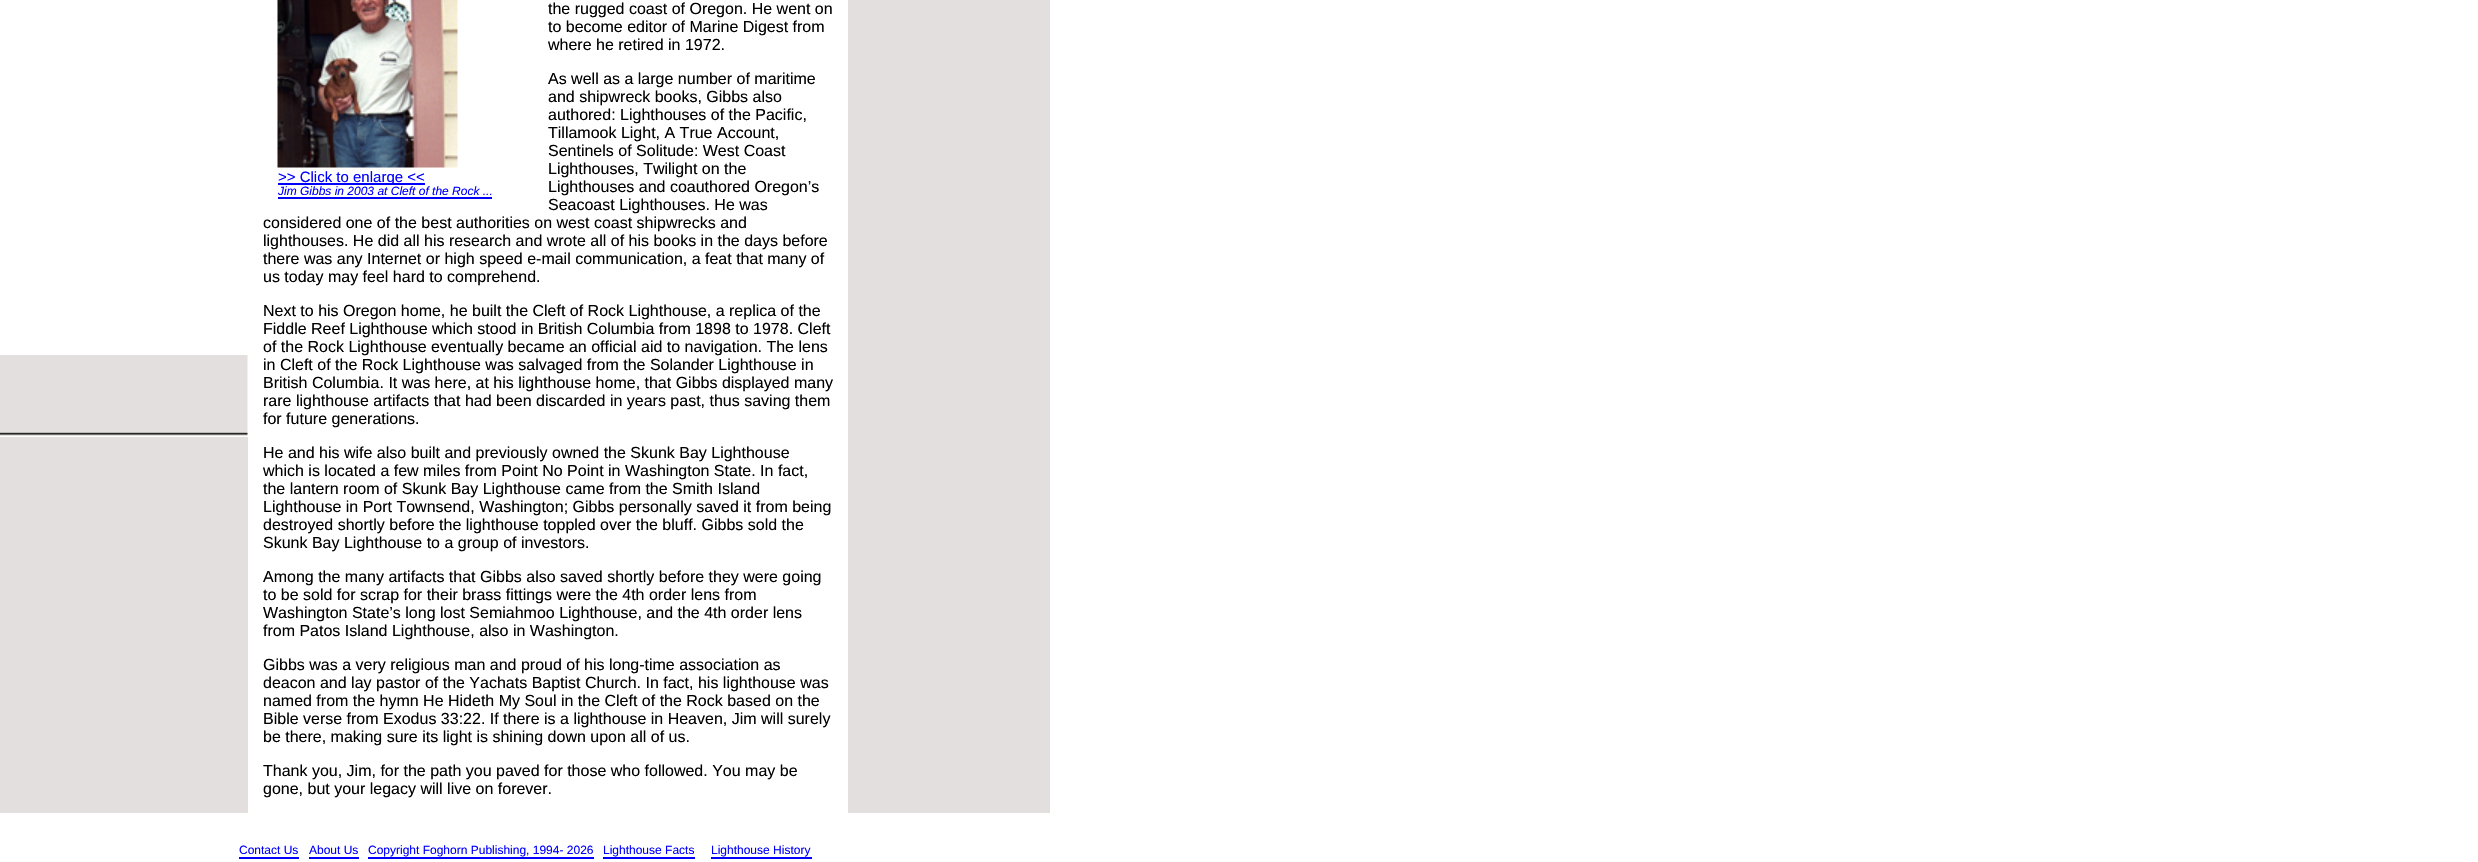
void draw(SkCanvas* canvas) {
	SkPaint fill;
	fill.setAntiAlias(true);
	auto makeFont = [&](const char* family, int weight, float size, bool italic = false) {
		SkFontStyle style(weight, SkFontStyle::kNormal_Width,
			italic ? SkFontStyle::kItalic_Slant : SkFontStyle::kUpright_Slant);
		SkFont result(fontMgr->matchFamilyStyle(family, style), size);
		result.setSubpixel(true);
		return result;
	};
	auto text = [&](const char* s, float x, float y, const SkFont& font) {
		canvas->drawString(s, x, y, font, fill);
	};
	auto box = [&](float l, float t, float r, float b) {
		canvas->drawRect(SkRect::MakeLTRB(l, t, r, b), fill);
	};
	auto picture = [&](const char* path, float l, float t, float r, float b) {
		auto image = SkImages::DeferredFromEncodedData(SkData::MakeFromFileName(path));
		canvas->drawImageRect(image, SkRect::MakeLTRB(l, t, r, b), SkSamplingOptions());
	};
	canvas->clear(0xFFFFFFFF);
	fill.setColor(0xFFE4DFDF);
	box(0, 437, 248, 813);
	picture("image0.png", 0, 355, 248, 436);
	picture("image1.png", 277, 0, 458, 168);
	fill.setColor(0xFF0000FF);
	box(278, 183, 425, 185);
	box(278, 197, 492, 199);
	fill.setColor(0xFFE4DFDF);
	box(848, 0, 1050, 813);
	fill.setColor(0xFF0000FF);
	box(239, 857, 299, 859);
	box(309, 857, 359, 859);
	box(368, 857, 594, 859);
	box(603, 857, 695, 859);
	box(711, 857, 812, 859);
	auto font1 = makeFont("Liberation Sans", 400, 16);
	fill.setColor(0xFF000000);
	text("the rugged coast of Oregon. He went on", 548, 14, font1);
	text("to become editor of Marine Digest from", 548, 32, font1);
	text("where he retired in 1972.", 548, 50, font1);
	text("As well as a large number of maritime", 548, 84, font1);
	text("and shipwreck books, Gibbs also", 548, 102, font1);
	text("authored: Lighthouses of the Pacific,", 548, 120, font1);
	text("Tillamook Light, A True Account,", 548, 138, font1);
	text("Sentinels of Solitude: West Coast", 548, 156, font1);
	text("Lighthouses, Twilight on the", 548, 174, font1);
	text("Lighthouses and coauthored Oregon’s", 548, 192, font1);
	text("Seacoast Lighthouses. He was", 548, 210, font1);
	text("considered one of the best authorities on west coast shipwrecks and", 263, 228, font1);
	text("lighthouses. He did all his research and wrote all of his books in the days before", 263, 246, font1);
	text("there was any Internet or high speed e-mail communication, a feat that many of", 263, 264, font1);
	text("us today may feel hard to comprehend.", 263, 282, font1);
	auto font2 = makeFont("Liberation Sans", 400, 15);
	fill.setColor(0xFF0000FF);
	text(">> Click to enlarge <<", 278, 182, font2);
	auto font3 = makeFont("Liberation Sans", 400, 12, true);
	text("Jim Gibbs in 2003 at Cleft of the Rock ...", 278, 195, font3);
	fill.setColor(0xFF000000);
	text("Next to his Oregon home, he built the Cleft of Rock Lighthouse, a replica of the", 263, 316, font1);
	text("Fiddle Reef Lighthouse which stood in British Columbia from 1898 to 1978. Cleft", 263, 334, font1);
	text("of the Rock Lighthouse eventually became an official aid to navigation. The lens", 263, 352, font1);
	text("in Cleft of the Rock Lighthouse was salvaged from the Solander Lighthouse in", 263, 370, font1);
	text("British Columbia. It was here, at his lighthouse home, that Gibbs displayed many", 263, 388, font1);
	text("rare lighthouse artifacts that had been discarded in years past, thus saving them", 263, 406, font1);
	text("for future generations.", 263, 424, font1);
	text("He and his wife also built and previously owned the Skunk Bay Lighthouse", 263, 458, font1);
	text("which is located a few miles from Point No Point in Washington State. In fact,", 263, 476, font1);
	text("the lantern room of Skunk Bay Lighthouse came from the Smith Island", 263, 494, font1);
	text("Lighthouse in Port Townsend, Washington; Gibbs personally saved it from being", 263, 512, font1);
	text("destroyed shortly before the lighthouse toppled over the bluff. Gibbs sold the", 263, 530, font1);
	text("Skunk Bay Lighthouse to a group of investors.", 263, 548, font1);
	text("Among the many artifacts that Gibbs also saved shortly before they were going", 263, 582, font1);
	text("to be sold for scrap for their brass fittings were the 4th order lens from", 263, 600, font1);
	text("Washington State’s long lost Semiahmoo Lighthouse, and the 4th order lens", 263, 618, font1);
	text("from Patos Island Lighthouse, also in Washington.", 263, 636, font1);
	text("Gibbs was a very religious man and proud of his long-time association as", 263, 670, font1);
	text("deacon and lay pastor of the Yachats Baptist Church. In fact, his lighthouse was", 263, 688, font1);
	text("named from the hymn He Hideth My Soul in the Cleft of the Rock based on the", 263, 706, font1);
	text("Bible verse from Exodus 33:22. If there is a lighthouse in Heaven, Jim will surely", 263, 724, font1);
	text("be there, making sure its light is shining down upon all of us.", 263, 742, font1);
	text("Thank you, Jim, for the path you paved for those who followed. You may be", 263, 776, font1);
	text("gone, but your legacy will live on forever.", 263, 794, font1);
	auto font4 = makeFont("Liberation Sans", 400, 12);
	fill.setColor(0xFF0000FF);
	text("Contact Us", 239, 854, font4);
	text("About Us", 309, 854, font4);
	text("Copyright Foghorn Publishing, 1994- 2026", 368, 854, font4);
	text("Lighthouse Facts", 603, 854, font4);
	text("Lighthouse History", 711, 854, font4);
}
